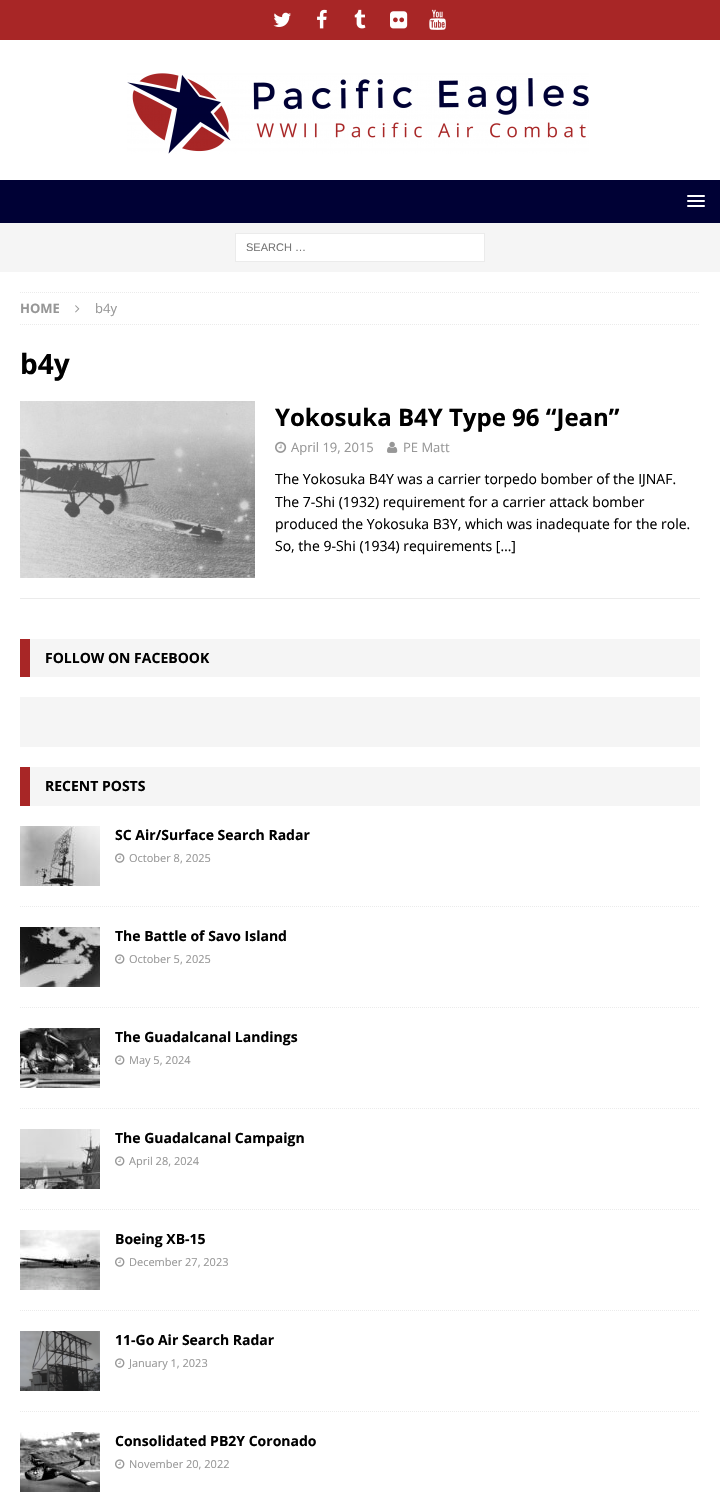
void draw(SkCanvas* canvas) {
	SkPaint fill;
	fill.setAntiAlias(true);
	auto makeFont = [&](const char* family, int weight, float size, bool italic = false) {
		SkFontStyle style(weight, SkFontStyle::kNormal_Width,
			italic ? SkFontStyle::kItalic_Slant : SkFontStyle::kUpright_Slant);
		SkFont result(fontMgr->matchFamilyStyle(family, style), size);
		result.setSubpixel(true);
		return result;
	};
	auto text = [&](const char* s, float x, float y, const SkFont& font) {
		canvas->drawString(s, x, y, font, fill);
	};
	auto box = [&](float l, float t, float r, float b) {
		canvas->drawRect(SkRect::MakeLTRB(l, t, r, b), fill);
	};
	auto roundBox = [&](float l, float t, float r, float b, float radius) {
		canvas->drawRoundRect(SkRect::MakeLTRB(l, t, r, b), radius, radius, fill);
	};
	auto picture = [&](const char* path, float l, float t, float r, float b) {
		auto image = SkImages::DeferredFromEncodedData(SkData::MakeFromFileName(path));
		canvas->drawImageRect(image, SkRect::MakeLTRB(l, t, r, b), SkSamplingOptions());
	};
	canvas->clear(0xFFA82626);
	picture("image0.png", 273, 12, 291, 27);
	picture("image1.png", 317, 9, 327, 29);
	picture("image2.png", 354, 9, 366, 29);
	picture("image3.png", 390, 11, 408, 29);
	picture("image4.png", 429, 9, 446, 30);
	fill.setColor(0xFFFFFFFF);
	box(0, 40, 720, 180);
	picture("image5.png", 127, 73, 589, 154);
	fill.setColor(0xFF000135);
	box(0, 180, 720, 223);
	fill.setColor(0xFFFFFFFF);
	roundBox(687, 195, 705, 197, 1);
	roundBox(687, 200, 705, 202, 1);
	roundBox(687, 205, 705, 207, 1);
	fill.setColor(0xFFF5F5F5);
	box(0, 223, 720, 272);
	fill.setColor(0xFFFFFFFF);
	canvas->drawRect(SkRect::MakeLTRB(235.5f, 233.5f, 484.5f, 261.5f), fill);
	fill.setStyle(SkPaint::kStroke_Style);
	fill.setStrokeWidth(1);
	fill.setColor(0xFFEBEBEB);
	canvas->drawRect(SkRect::MakeLTRB(235.5f, 233.5f, 484.5f, 261.5f), fill);
	fill.setStyle(SkPaint::kFill_Style);
	fill.setColor(0xFFFFFFFF);
	box(0, 272, 720, 1502);
	fill.setStyle(SkPaint::kStroke_Style);
	fill.setColor(0xFFEBEBEB);
	fill.setPathEffect(SkDashPathEffect::Make({{1, 1}}, 0));
	canvas->drawPath(SkPathBuilder().moveTo(20, 292.5f).lineTo(700, 292.5f).detach(), fill);
	fill.setPathEffect(nullptr);
	fill.setPathEffect(SkDashPathEffect::Make({{1, 1}}, 0));
	canvas->drawPath(SkPathBuilder().moveTo(20, 324.5f).lineTo(700, 324.5f).detach(), fill);
	fill.setPathEffect(nullptr);
	picture("image6.png", 75, 305, 80, 313);
	fill.setStyle(SkPaint::kFill_Style);
	box(20, 598, 700, 599);
	picture("image7.png", 20, 401, 255, 578);
	picture("image8.png", 275, 441, 287, 453);
	picture("image9.png", 387, 441, 398, 453);
	fill.setColor(0xFFF5F5F5);
	box(30, 639, 700, 677);
	fill.setColor(0xFFA82626);
	box(20, 639, 30, 677);
	fill.setColor(0xFFF5F5F5);
	box(20, 697, 700, 747);
	box(30, 767, 700, 806);
	fill.setColor(0xFFA82626);
	box(20, 767, 30, 806);
	fill.setStyle(SkPaint::kStroke_Style);
	fill.setColor(0xFFEBEBEB);
	fill.setPathEffect(SkDashPathEffect::Make({{1, 1}}, 0));
	canvas->drawPath(SkPathBuilder().moveTo(20, 906.5f).lineTo(700, 906.5f).detach(), fill);
	fill.setPathEffect(nullptr);
	picture("image10.png", 20, 826, 100, 886);
	picture("image11.png", 115, 853, 125, 863);
	fill.setPathEffect(SkDashPathEffect::Make({{1, 1}}, 0));
	canvas->drawPath(SkPathBuilder().moveTo(20, 1007.5f).lineTo(700, 1007.5f).detach(), fill);
	fill.setPathEffect(nullptr);
	picture("image12.png", 20, 927, 100, 987);
	picture("image11.png", 115, 954, 125, 964);
	fill.setPathEffect(SkDashPathEffect::Make({{1, 1}}, 0));
	canvas->drawPath(SkPathBuilder().moveTo(20, 1108.5f).lineTo(700, 1108.5f).detach(), fill);
	fill.setPathEffect(nullptr);
	picture("image13.png", 20, 1028, 100, 1088);
	picture("image11.png", 115, 1055, 125, 1065);
	fill.setPathEffect(SkDashPathEffect::Make({{1, 1}}, 0));
	canvas->drawPath(SkPathBuilder().moveTo(20, 1209.5f).lineTo(700, 1209.5f).detach(), fill);
	fill.setPathEffect(nullptr);
	picture("image14.png", 20, 1129, 100, 1189);
	picture("image11.png", 115, 1156, 125, 1166);
	fill.setPathEffect(SkDashPathEffect::Make({{1, 1}}, 0));
	canvas->drawPath(SkPathBuilder().moveTo(20, 1310.5f).lineTo(700, 1310.5f).detach(), fill);
	fill.setPathEffect(nullptr);
	picture("image15.png", 20, 1230, 100, 1290);
	picture("image11.png", 115, 1257, 125, 1267);
	fill.setPathEffect(SkDashPathEffect::Make({{1, 1}}, 0));
	canvas->drawPath(SkPathBuilder().moveTo(20, 1411.5f).lineTo(700, 1411.5f).detach(), fill);
	fill.setPathEffect(nullptr);
	picture("image16.png", 20, 1331, 100, 1391);
	picture("image11.png", 115, 1358, 125, 1368);
	picture("image17.png", 20, 1432, 100, 1492);
	picture("image11.png", 115, 1459, 125, 1469);
	auto font1 = makeFont("Liberation Sans", 400, 11);
	fill.setStyle(SkPaint::kFill_Style);
	fill.setColor(0xFF757575);
	text("SEARCH …", 246, 251, font1);
	auto font2 = makeFont("Open Sans", 700, 13);
	fill.setColor(0xFF979797);
	text("HOME", 20, 313, font2);
	auto font3 = makeFont("Open Sans", 400, 13);
	text("b4y", 95, 313, font3);
	auto font4 = makeFont("Open Sans", 700, 28);
	fill.setColor(0xFF000000);
	text("b4y", 20, 374, font4);
	auto font5 = makeFont("Open Sans", 700, 24);
	text("Yokosuka B4Y Type 96 “Jean”", 275, 426, font5);
	fill.setColor(0xFF979797);
	text("April 19, 2015", 291, 452, font3);
	text("PE Matt", 403, 452, font3);
	auto font6 = makeFont("Open Sans", 400, 14);
	fill.setColor(0xFF000000);
	text("The Yokosuka B4Y was a carrier torpedo bomber of the IJNAF.", 275, 484, font6);
	text("The 7-Shi (1932) requirement for a carrier attack bomber", 275, 507, font6);
	text("produced the Yokosuka B3Y, which was inadequate for the role.", 275, 529, font6);
	text("So, the 9-Shi (1934) requirements […]", 275, 551, font6);
	auto font7 = makeFont("Open Sans", 700, 14);
	text("FOLLOW ON FACEBOOK", 45, 663, font7);
	text("RECENT POSTS", 45, 791, font7);
	text("SC Air/Surface Search Radar", 115, 840, font7);
	auto font8 = makeFont("Open Sans", 400, 11);
	fill.setColor(0xFF979797);
	text("October 8, 2025", 129, 862, font8);
	fill.setColor(0xFF000000);
	text("The Battle of Savo Island", 115, 941, font7);
	fill.setColor(0xFF979797);
	text("October 5, 2025", 129, 963, font8);
	fill.setColor(0xFF000000);
	text("The Guadalcanal Landings", 115, 1042, font7);
	fill.setColor(0xFF979797);
	text("May 5, 2024", 129, 1064, font8);
	fill.setColor(0xFF000000);
	text("The Guadalcanal Campaign", 115, 1143, font7);
	fill.setColor(0xFF979797);
	text("April 28, 2024", 129, 1165, font8);
	fill.setColor(0xFF000000);
	text("Boeing XB-15", 115, 1244, font7);
	fill.setColor(0xFF979797);
	text("December 27, 2023", 129, 1266, font8);
	fill.setColor(0xFF000000);
	text("11-Go Air Search Radar", 115, 1345, font7);
	fill.setColor(0xFF979797);
	text("January 1, 2023", 129, 1367, font8);
	fill.setColor(0xFF000000);
	text("Consolidated PB2Y Coronado", 115, 1446, font7);
	fill.setColor(0xFF979797);
	text("November 20, 2022", 129, 1468, font8);
}
